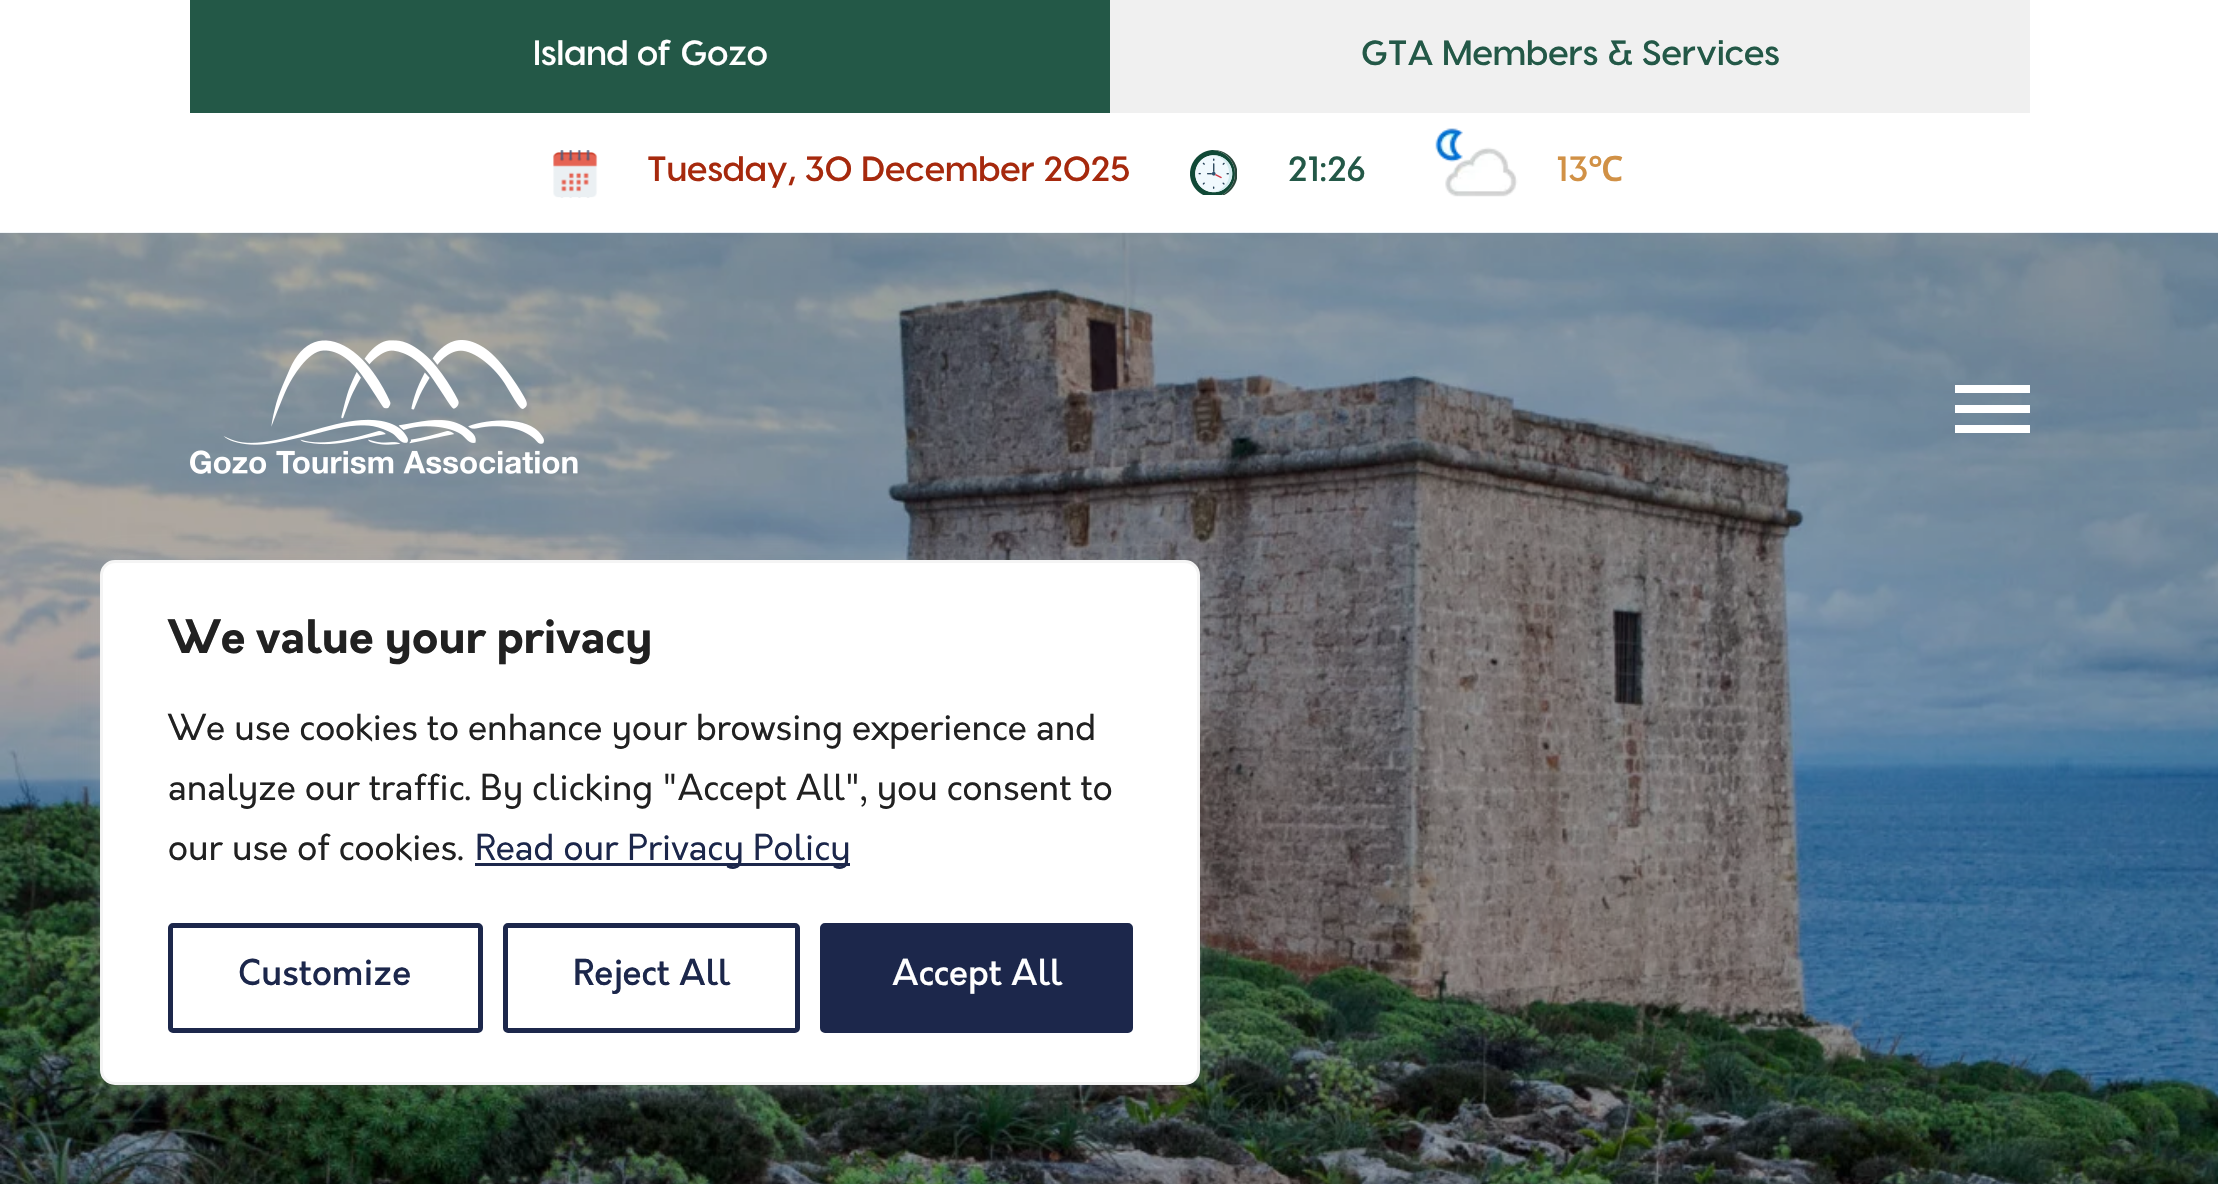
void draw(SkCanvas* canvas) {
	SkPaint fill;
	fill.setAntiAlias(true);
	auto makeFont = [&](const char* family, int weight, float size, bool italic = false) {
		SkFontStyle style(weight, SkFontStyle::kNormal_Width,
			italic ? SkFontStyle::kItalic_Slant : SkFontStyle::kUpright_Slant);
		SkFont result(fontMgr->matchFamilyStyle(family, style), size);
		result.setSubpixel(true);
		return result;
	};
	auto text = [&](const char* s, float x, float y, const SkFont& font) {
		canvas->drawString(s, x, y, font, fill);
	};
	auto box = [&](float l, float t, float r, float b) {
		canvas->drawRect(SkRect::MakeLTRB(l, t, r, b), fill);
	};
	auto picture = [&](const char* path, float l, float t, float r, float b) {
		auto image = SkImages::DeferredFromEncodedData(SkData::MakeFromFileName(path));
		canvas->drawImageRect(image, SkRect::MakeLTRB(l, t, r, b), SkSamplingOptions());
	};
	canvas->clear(0xFFFFFFFF);
	fill.setColor(0xFF235847);
	box(190, 0, 1110, 113);
	fill.setColor(0xFFF0F0F0);
	box(1110, 0, 2030, 113);
	picture("image0.png", 553, 150, 598, 198);
	picture("image1.png", 1190, 150, 1237, 195);
	picture("image2.png", 1435, 128, 1518, 197);
	picture("image4.png", 0, 232, 2218, 1184);
	picture("image3.png", 190, 340, 578, 474);
	fill.setColor(0xFFFFFFFF);
	box(1955, 385, 2030, 393);
	box(1955, 405, 2030, 413);
	box(1955, 425, 2030, 433);
	fill.setColor(0x4DACABAB);
	fill.setMaskFilter(SkMaskFilter::MakeBlur(kNormal_SkBlurStyle, 12.5f));
	canvas->drawRoundRect(SkRect::MakeLTRB(100, 558, 1200, 1083), 15, 15, fill);
	fill.setMaskFilter(nullptr);
	fill.setColor(0xFFFFFFFF);
	canvas->drawRoundRect(SkRect::MakeLTRB(101.5f, 561.5f, 1198.5f, 1083.5f), 13.5f, 13.5f, fill);
	fill.setStyle(SkPaint::kStroke_Style);
	fill.setStrokeWidth(3);
	fill.setColor(0xFFF4F4F4);
	canvas->drawRoundRect(SkRect::MakeLTRB(101.5f, 561.5f, 1198.5f, 1083.5f), 13.5f, 13.5f, fill);
	fill.setStyle(SkPaint::kFill_Style);
	fill.setColor(0xFF1C274B);
	box(475, 863, 850, 866);
	fill.setStyle(SkPaint::kStroke_Style);
	fill.setStrokeWidth(5);
	canvas->drawRoundRect(SkRect::MakeLTRB(170.5f, 925.5f, 480.5f, 1030.5f), 2.5f, 2.5f, fill);
	canvas->drawRoundRect(SkRect::MakeLTRB(505.5f, 925.5f, 797.5f, 1030.5f), 2.5f, 2.5f, fill);
	fill.setStyle(SkPaint::kFill_Style);
	canvas->drawRoundRect(SkRect::MakeLTRB(822.5f, 925.5f, 1130.5f, 1030.5f), 2.5f, 2.5f, fill);
	fill.setStyle(SkPaint::kStroke_Style);
	canvas->drawRoundRect(SkRect::MakeLTRB(822.5f, 925.5f, 1130.5f, 1030.5f), 2.5f, 2.5f, fill);
	auto font1 = makeFont("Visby", 600, 35);
	fill.setStyle(SkPaint::kFill_Style);
	fill.setColor(0xFFFFFFFF);
	text("Island of Gozo", 533, 65, font1);
	fill.setColor(0xFF235847);
	text("GTA Members & Services", 1361, 65, font1);
	fill.setColor(0xFFA6290D);
	text("Tuesday, 30 December 2025", 647, 181, font1);
	fill.setColor(0xFF235847);
	text("21:26", 1288, 181, font1);
	fill.setColor(0xFFD19146);
	text("13", 1556, 181, font1);
	auto font2 = makeFont("Noto Sans", 600, 35);
	text("℃", 1588, 181, font2);
	auto font3 = makeFont("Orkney", 700, 45);
	fill.setColor(0xFF212121);
	text("We value your privacy", 168, 653, font3);
	auto font4 = makeFont("Orkney", 400, 35);
	text("We use cookies to enhance your browsing experience and", 168, 740, font4);
	text("analyze our traffic. By clicking \"Accept All\", you consent to", 168, 800, font4);
	text("our use of cookies.", 168, 860, font4);
	fill.setColor(0xFF1C274B);
	text("Read our Privacy Policy", 475, 860, font4);
	auto font5 = makeFont("Orkney", 500, 35);
	text("Customize", 238, 985, font5);
	text("Reject All", 573, 985, font5);
	fill.setColor(0xFFFFFFFF);
	text("Accept All", 892, 985, font5);
}
